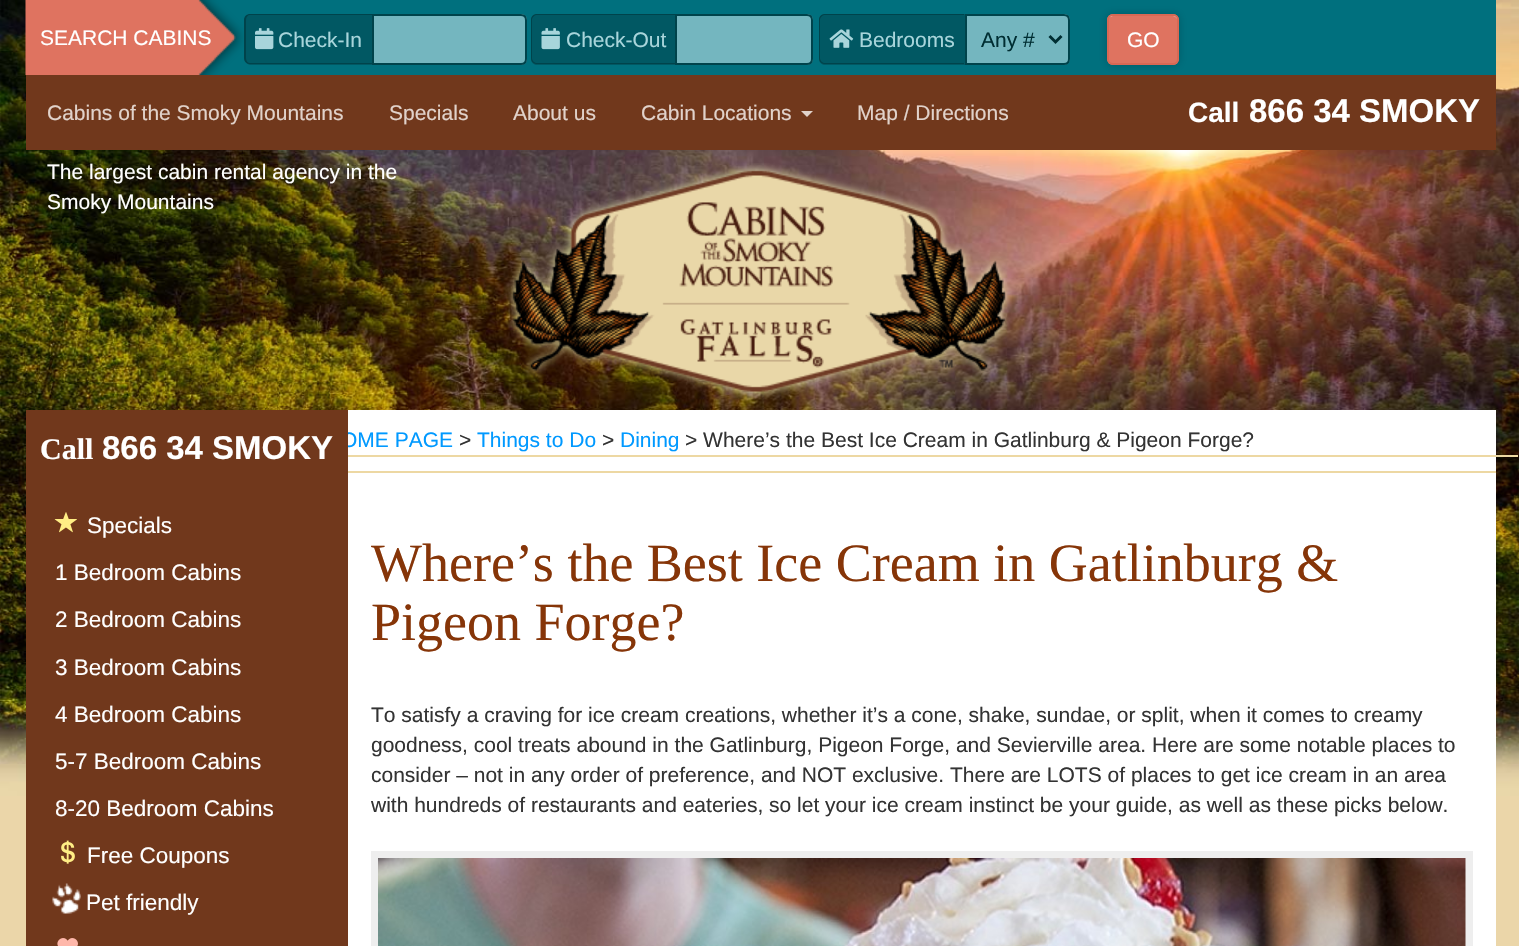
void draw(SkCanvas* canvas) {
	SkPaint fill;
	fill.setAntiAlias(true);
	auto makeFont = [&](const char* family, int weight, float size, bool italic = false) {
		SkFontStyle style(weight, SkFontStyle::kNormal_Width,
			italic ? SkFontStyle::kItalic_Slant : SkFontStyle::kUpright_Slant);
		SkFont result(fontMgr->matchFamilyStyle(family, style), size);
		result.setSubpixel(true);
		return result;
	};
	auto text = [&](const char* s, float x, float y, const SkFont& font) {
		canvas->drawString(s, x, y, font, fill);
	};
	auto box = [&](float l, float t, float r, float b) {
		canvas->drawRect(SkRect::MakeLTRB(l, t, r, b), fill);
	};
	auto roundBox = [&](float l, float t, float r, float b, float radius) {
		canvas->drawRoundRect(SkRect::MakeLTRB(l, t, r, b), radius, radius, fill);
	};
	auto picture = [&](const char* path, float l, float t, float r, float b) {
		auto image = SkImages::DeferredFromEncodedData(SkData::MakeFromFileName(path));
		canvas->drawImageRect(image, SkRect::MakeLTRB(l, t, r, b), SkSamplingOptions());
	};
	canvas->clear(0xFFEBD6A9);
	picture("image0.png", 0, 0, 1519, 796);
	fill.setColor(0xFF71381C);
	box(26, 75, 1496, 150);
	fill.setColor(0xFF00707E);
	box(197, 0, 1496, 75);
	picture("image1.png", 25, 0, 244, 75);
	fill.setColor(0xFF015863);
	canvas->drawPath(SkPathBuilder().moveTo(251, 14).lineTo(372, 14).lineTo(372, 65).lineTo(251, 65).cubicTo(247.5f, 65, 245, 62.5f, 245, 59).lineTo(245, 20).cubicTo(245, 16.5f, 247.5f, 14, 251, 14).close().detach(), fill);
	fill.setColor(0xFF00434B);
	canvas->drawPath(SkPathBuilder(SkPathFillType::kEvenOdd).moveTo(250, 14).lineTo(372, 14).lineTo(372, 64).lineTo(250, 64).cubicTo(247, 64, 244, 62, 244, 58).lineTo(244, 20).cubicTo(244, 16, 247, 14, 250, 14).close().moveTo(250, 15).lineTo(372, 15).lineTo(372, 63).lineTo(250, 63).cubicTo(248, 63, 246, 61, 246, 58).lineTo(246, 20).cubicTo(246, 17, 248, 15, 250, 15).close().detach(), fill);
	picture("image2.png", 255, 28, 274, 50);
	fill.setColor(0xFF74B6BF);
	canvas->drawPath(SkPathBuilder().moveTo(372, 14).lineTo(521, 14).cubicTo(524.5f, 14, 527, 16.5f, 527, 20).lineTo(527, 59).cubicTo(527, 62.5f, 524.5f, 65, 521, 65).lineTo(372, 65).close().detach(), fill);
	fill.setColor(0xFF6BA8B1);
	canvas->drawPath(SkPathBuilder().moveTo(374, 16).lineTo(520, 16).cubicTo(523, 16, 525, 19, 525, 21).lineTo(525, 20).cubicTo(525, 17, 523, 15, 520, 15).lineTo(374, 15).close().detach(), fill);
	fill.setStyle(SkPaint::kStroke_Style);
	fill.setStrokeWidth(2);
	fill.setColor(0xFF00434B);
	canvas->drawPath(SkPathBuilder().moveTo(373, 15).lineTo(521, 15).cubicTo(524, 15, 526, 17, 526, 20).lineTo(526, 59).cubicTo(526, 62, 524, 64, 521, 64).lineTo(373, 64).close().detach(), fill);
	fill.setStyle(SkPaint::kFill_Style);
	fill.setColor(0xFF015863);
	canvas->drawPath(SkPathBuilder().moveTo(537, 14).lineTo(675, 14).lineTo(675, 65).lineTo(537, 65).cubicTo(533.5f, 65, 531, 62.5f, 531, 59).lineTo(531, 20).cubicTo(531, 16.5f, 533.5f, 14, 537, 14).close().detach(), fill);
	fill.setColor(0xFF00434B);
	canvas->drawPath(SkPathBuilder(SkPathFillType::kEvenOdd).moveTo(537, 14).lineTo(675, 14).lineTo(675, 64).lineTo(537, 64).cubicTo(534, 64, 531, 62, 531, 58).lineTo(531, 20).cubicTo(531, 16, 534, 14, 537, 14).close().moveTo(537, 15).lineTo(675, 15).lineTo(675, 63).lineTo(537, 63).cubicTo(535, 63, 532, 61, 532, 58).lineTo(532, 20).cubicTo(532, 17, 535, 15, 537, 15).close().detach(), fill);
	picture("image3.png", 541, 28, 560, 50);
	fill.setColor(0xFF74B6BF);
	canvas->drawPath(SkPathBuilder().moveTo(675, 14).lineTo(807, 14).cubicTo(810.5f, 14, 813, 16.5f, 813, 20).lineTo(813, 59).cubicTo(813, 62.5f, 810.5f, 65, 807, 65).lineTo(675, 65).close().detach(), fill);
	fill.setColor(0xFF6BA8B1);
	canvas->drawPath(SkPathBuilder().moveTo(677, 15).lineTo(677, 16).lineTo(807, 16).cubicTo(809, 16, 812, 19, 812, 21).cubicTo(812, 18, 810, 15, 807, 15).close().detach(), fill);
	fill.setStyle(SkPaint::kStroke_Style);
	fill.setColor(0xFF00434B);
	canvas->drawPath(SkPathBuilder().moveTo(676, 15).lineTo(807, 15).cubicTo(810, 15, 812, 17, 812, 20).lineTo(812, 59).cubicTo(812, 62, 810, 64, 807, 64).lineTo(676, 64).close().detach(), fill);
	fill.setStyle(SkPaint::kFill_Style);
	fill.setColor(0xFF015863);
	canvas->drawPath(SkPathBuilder().moveTo(825, 14).lineTo(965, 14).lineTo(965, 65).lineTo(825, 65).cubicTo(821.5f, 65, 819, 62.5f, 819, 59).lineTo(819, 20).cubicTo(819, 16.5f, 821.5f, 14, 825, 14).close().detach(), fill);
	fill.setColor(0xFF00434B);
	canvas->drawPath(SkPathBuilder(SkPathFillType::kEvenOdd).moveTo(825, 14).lineTo(964, 14).lineTo(964, 64).lineTo(825, 64).cubicTo(822, 64, 819, 62, 819, 58).lineTo(819, 20).cubicTo(819, 16, 822, 14, 825, 14).close().moveTo(825, 15).lineTo(964, 15).lineTo(964, 63).lineTo(825, 63).cubicTo(823, 63, 820, 61, 820, 58).lineTo(820, 20).cubicTo(820, 17, 823, 15, 825, 15).close().detach(), fill);
	picture("image4.png", 829, 29, 854, 48);
	fill.setColor(0xFF74B6BF);
	canvas->drawPath(SkPathBuilder().moveTo(965, 14).lineTo(1064, 14).cubicTo(1067.5f, 14, 1070, 16.5f, 1070, 20).lineTo(1070, 59).cubicTo(1070, 62.5f, 1067.5f, 65, 1064, 65).lineTo(965, 65).close().detach(), fill);
	fill.setColor(0xFF6BA8B1);
	canvas->drawPath(SkPathBuilder().moveTo(966, 16).lineTo(1064, 16).cubicTo(1066, 16, 1068, 19, 1068, 21).lineTo(1068, 20).cubicTo(1068, 17, 1066, 15, 1063, 15).lineTo(966, 15).close().detach(), fill);
	fill.setStyle(SkPaint::kStroke_Style);
	fill.setColor(0xFF00434B);
	canvas->drawPath(SkPathBuilder().moveTo(966, 15).lineTo(1064, 15).cubicTo(1067, 15, 1069, 17, 1069, 20).lineTo(1069, 59).cubicTo(1069, 62, 1067, 64, 1064, 64).lineTo(966, 64).close().detach(), fill);
	fill.setStrokeWidth(3);
	fill.setColor(0xFF002E33);
	canvas->drawPath(SkPathBuilder().moveTo(1049.5f, 36).lineTo(1055.5f, 42).lineTo(1061.5f, 36).detach(), fill);
	fill.setStyle(SkPaint::kFill_Style);
	fill.setColor(0x33000000);
	fill.setMaskFilter(SkMaskFilter::MakeBlur(kNormal_SkBlurStyle, 4));
	canvas->drawRoundRect(SkRect::MakeLTRB(1107, 14, 1179, 65), 6, 6, fill);
	fill.setMaskFilter(nullptr);
	fill.setColor(0xFFDF7360);
	roundBox(1107, 14, 1179, 65, 6);
	fill.setColor(0xFFF2C7BF);
	canvas->drawPath(SkPathBuilder().moveTo(1113, 16).lineTo(1173, 16).cubicTo(1175, 16, 1178, 19, 1178, 21).lineTo(1178, 20).cubicTo(1178, 17, 1176, 15, 1173, 15).lineTo(1114, 15).cubicTo(1112, 15, 1110, 16, 1109, 18).cubicTo(1110, 17, 1112, 16, 1113, 16).close().detach(), fill);
	fill.setStyle(SkPaint::kStroke_Style);
	fill.setStrokeWidth(2);
	fill.setColor(0xFFD86854);
	canvas->drawRoundRect(SkRect::MakeLTRB(1108, 15, 1178, 64), 5, 5, fill);
	fill.setStyle(SkPaint::kFill_Style);
	fill.setColor(0xFFE1D2CA);
	canvas->drawPath(SkPathBuilder().moveTo(801, 111).lineTo(813, 111).lineTo(807, 117).close().detach(), fill);
	picture("image5.png", 506, 163, 1012, 400);
	fill.setColor(0xFFFFFFFF);
	box(348, 410, 1496, 946);
	fill.setColor(0xFFEDD8A3);
	box(348, 471, 1496, 473);
	box(348, 455, 1518, 457);
	fill.setColor(0xFFEEEEEE);
	box(371, 851, 1473, 946);
	picture("image10.png", 378, 858, 1466, 946);
	auto font1 = makeFont("Arimo", 400, 21);
	fill.setColor(0xFFFFFFFF);
	text("SEARCH CABINS", 40, 45, font1);
	fill.setColor(0xFFA8D5DB);
	text("Check-In", 278, 47, font1);
	text("Check-Out", 566, 47, font1);
	text("Bedrooms", 859, 47, font1);
	fill.setColor(0xFF002E33);
	text("Any #", 981, 47, font1);
	fill.setColor(0xFFFFFFFF);
	text("GO", 1127, 47, font1);
	auto font2 = makeFont("Arimo", 700, 28);
	text("Call", 1188, 122, font2);
	auto font3 = makeFont("Arimo", 700, 33);
	text("866 34 SMOKY", 1249, 122, font3);
	fill.setColor(0xFFE1D2CA);
	text("Cabins of the Smoky Mountains", 47, 120, font1);
	text("Specials", 389, 120, font1);
	text("About us", 513, 120, font1);
	text("Cabin Locations", 641, 120, font1);
	text("Map / Directions", 857, 120, font1);
	fill.setColor(0xFFFFFFFF);
	text("The largest cabin rental agency in the", 47, 179, font1);
	text("Smoky Mountains", 47, 209, font1);
	fill.setColor(0xFF0099FF);
	text("OME PAGE", 341, 447, font1);
	fill.setColor(0xFF71381C);
	box(26, 410, 348, 946);
	picture("image9.png", 57, 938, 78, 946);
	picture("image7.png", 61, 840, 75, 864);
	picture("image6.png", 54, 512, 77, 533);
	auto font4 = makeFont("Arimo", 400, 22.5f);
	fill.setColor(0xFFFFFFFF);
	text("Pet friendly", 86, 910, font4);
	text("Free Coupons", 87, 863, font4);
	text("8-20 Bedroom Cabins", 55, 816, font4);
	text("5-7 Bedroom Cabins", 55, 769, font4);
	text("4 Bedroom Cabins", 55, 722, font4);
	text("3 Bedroom Cabins", 55, 675, font4);
	text("2 Bedroom Cabins", 55, 627, font4);
	text("1 Bedroom Cabins", 55, 580, font4);
	text("Specials", 87, 533, font4);
	text("866 34 SMOKY", 102, 459, font3);
	auto font5 = makeFont("Liberation Serif", 700, 30);
	text("Call", 40, 459, font5);
	picture("image8.png", 52, 883, 81, 914);
	fill.setColor(0xFF333333);
	text(">", 459, 447, font1);
	fill.setColor(0xFF0099FF);
	text("Things to Do", 477, 447, font1);
	fill.setColor(0xFF333333);
	text(">", 602, 447, font1);
	fill.setColor(0xFF0099FF);
	text("Dining", 620, 447, font1);
	fill.setColor(0xFF333333);
	text("> Where’s the Best Ice Cream in Gatlinburg & Pigeon Forge?", 685, 447, font1);
	auto font6 = makeFont("Liberation Serif", 400, 54);
	fill.setColor(0xFF863508);
	text("Where’s the Best Ice Cream in Gatlinburg &", 371, 581, font6);
	text("Pigeon Forge?", 371, 640, font6);
	fill.setColor(0xFF333333);
	text("To satisfy a craving for ice cream creations, whether it’s a cone, shake, sundae, or split, when it comes to creamy", 371, 722, font1);
	text("goodness, cool treats abound in the Gatlinburg, Pigeon Forge, and Sevierville area. Here are some notable places to", 371, 752, font1);
	text("consider – not in any order of preference, and NOT exclusive. There are LOTS of places to get ice cream in an area", 371, 782, font1);
	text("with hundreds of restaurants and eateries, so let your ice cream instinct be your guide, as well as these picks below.", 371, 812, font1);
}
